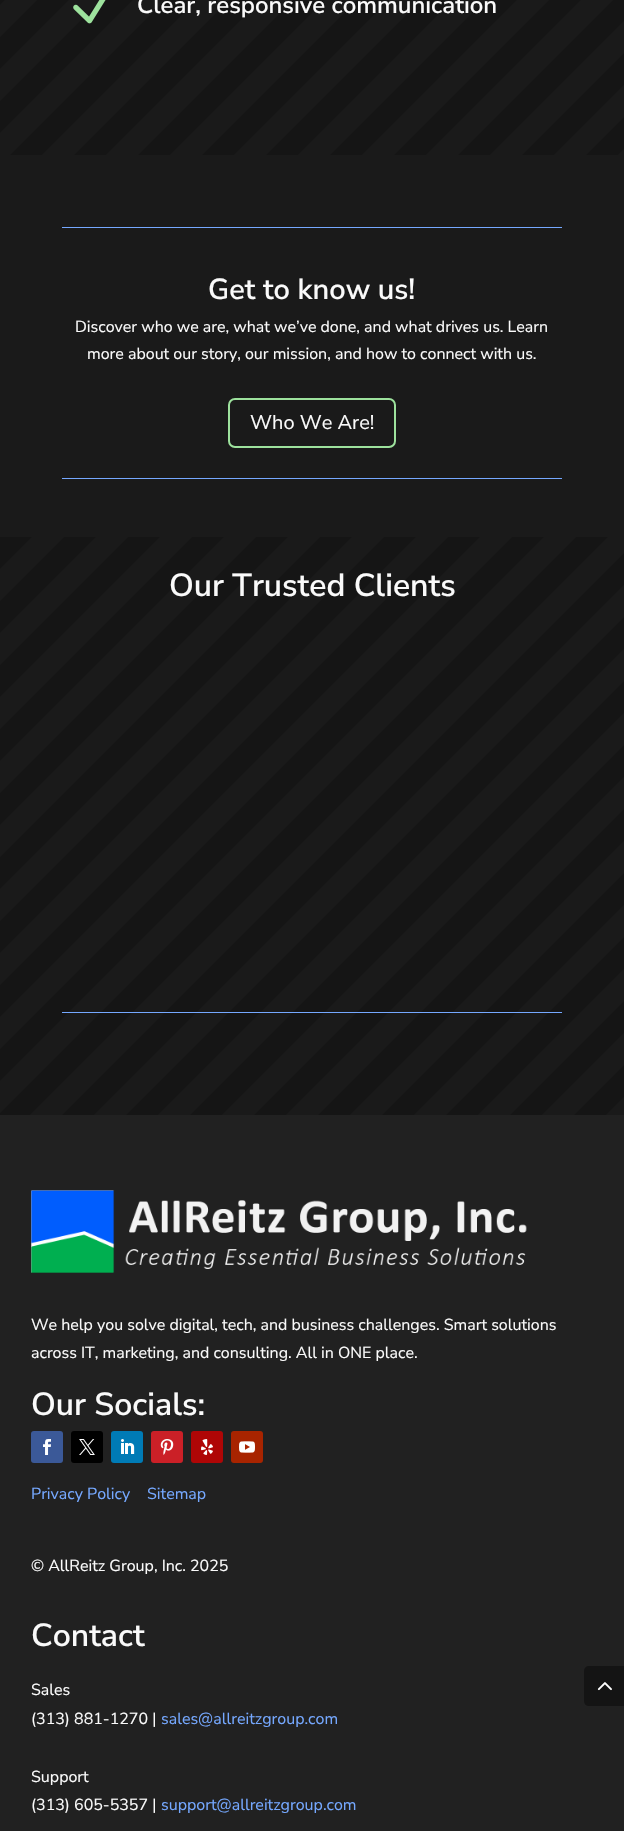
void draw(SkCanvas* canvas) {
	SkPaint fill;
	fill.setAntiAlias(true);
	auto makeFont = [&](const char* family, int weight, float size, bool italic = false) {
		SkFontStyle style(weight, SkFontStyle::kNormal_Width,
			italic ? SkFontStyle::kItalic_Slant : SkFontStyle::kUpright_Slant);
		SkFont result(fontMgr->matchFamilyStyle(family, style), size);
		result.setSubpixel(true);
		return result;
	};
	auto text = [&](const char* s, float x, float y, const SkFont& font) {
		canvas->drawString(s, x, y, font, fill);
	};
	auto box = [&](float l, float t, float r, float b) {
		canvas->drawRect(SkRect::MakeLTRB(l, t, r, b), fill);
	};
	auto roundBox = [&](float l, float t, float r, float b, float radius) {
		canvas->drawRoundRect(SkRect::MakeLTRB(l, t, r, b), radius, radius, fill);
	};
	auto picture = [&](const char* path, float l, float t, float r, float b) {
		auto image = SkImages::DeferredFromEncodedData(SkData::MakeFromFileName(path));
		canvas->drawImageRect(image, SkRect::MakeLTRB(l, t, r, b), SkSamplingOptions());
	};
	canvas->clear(0xFF1A1A1A);
	picture("image0.png", 0, 0, 624, 155);
	picture("image1.png", 73, 0, 106, 24);
	fill.setColor(0xFF75A8FF);
	box(62, 227, 562, 228);
	fill.setStyle(SkPaint::kStroke_Style);
	fill.setStrokeWidth(2);
	fill.setColor(0xFF9DE29D);
	canvas->drawRoundRect(SkRect::MakeLTRB(229, 399, 395, 447), 6, 6, fill);
	fill.setStyle(SkPaint::kFill_Style);
	fill.setColor(0xFF75A8FF);
	box(62, 478, 562, 479);
	picture("image2.png", 0, 537, 624, 1115);
	box(62, 1012, 562, 1013);
	fill.setColor(0xFF212121);
	box(0, 1115, 624, 1831);
	picture("image3.png", 31, 1190, 527, 1273);
	fill.setColor(0xFF3B5998);
	roundBox(31, 1431, 63, 1463, 3);
	picture("image4.png", 43, 1439, 51, 1455);
	fill.setColor(0xFF000000);
	roundBox(71, 1431, 103, 1463, 3);
	picture("image5.png", 79, 1439, 95, 1455);
	fill.setColor(0xFF007BB6);
	roundBox(111, 1431, 143, 1463, 3);
	picture("image6.png", 121, 1439, 135, 1454);
	fill.setColor(0xFFCB2027);
	roundBox(151, 1431, 183, 1463, 3);
	picture("image7.png", 160, 1439, 174, 1455);
	fill.setColor(0xFFAF0606);
	roundBox(191, 1431, 223, 1463, 3);
	picture("image8.png", 201, 1439, 213, 1455);
	fill.setColor(0xFFA82400);
	roundBox(231, 1431, 263, 1463, 3);
	picture("image9.png", 239, 1441, 255, 1453);
	fill.setColor(0xFF141414);
	canvas->drawPath(SkPathBuilder().moveTo(589, 1666).lineTo(624, 1666).lineTo(624, 1706).lineTo(589, 1706).cubicTo(586, 1706, 584, 1704, 584, 1701).lineTo(584, 1671).cubicTo(584, 1668, 586, 1666, 589, 1666).close().detach(), fill);
	picture("image10.png", 597, 1682, 612, 1691);
	auto font1 = makeFont("Nunito Sans", 200, 24);
	fill.setColor(0xFFFAFAFA);
	text("Clear, responsive communication", 137, 13, font1);
	auto font2 = makeFont("Nunito Sans", 200, 29);
	text("Get to know us!", 208, 299, font2);
	auto font3 = makeFont("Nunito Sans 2", 200, 16);
	text("Discover who we are, what we’ve done, and what drives us. Learn", 75, 332, font3);
	text("more about our story, our mission, and how to connect with us.", 87, 359, font3);
	auto font4 = makeFont("Nunito Sans 2", 200, 20);
	text("Who We Are!", 250, 429, font4);
	auto font5 = makeFont("Nunito Sans", 200, 32);
	text("Our Trusted Clients", 169, 596, font5);
	text("We help you solve digital, tech, and business challenges. Smart solutions", 31, 1330, font3);
	text("across IT, marketing, and consulting. All in ONE place.", 31, 1358, font3);
	text("Our Socials:", 31, 1415, font5);
	fill.setColor(0xFF75A8FF);
	text("Privacy Policy", 31, 1499, font3);
	text("Sitemap", 147, 1499, font3);
	fill.setColor(0xFFFAFAFA);
	text("© AllReitz Group, Inc. 2025", 31, 1571, font3);
	text("Contact", 31, 1646, font5);
	text("Sales", 31, 1695, font3);
	text("(313) 881-1270 |", 31, 1724, font3);
	fill.setColor(0xFF75A8FF);
	text("sales@allreitzgroup.com", 161, 1724, font3);
	fill.setColor(0xFFFAFAFA);
	text("Support", 31, 1782, font3);
	text("(313) 605-5357 |", 31, 1810, font3);
	fill.setColor(0xFF75A8FF);
	text("support@allreitzgroup.com", 161, 1810, font3);
}
